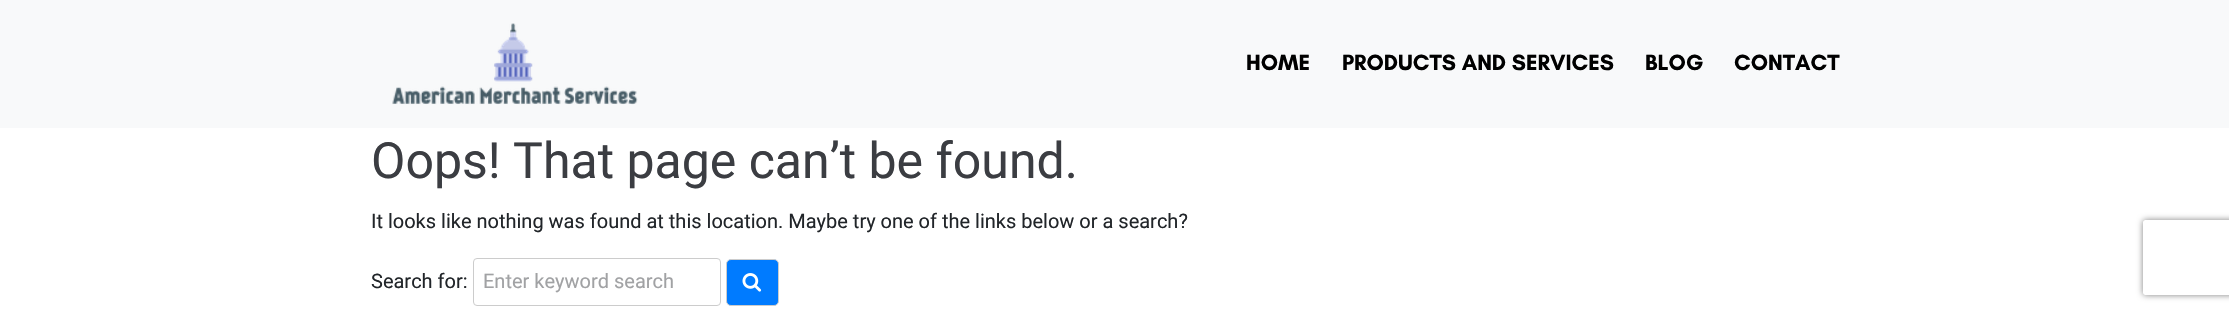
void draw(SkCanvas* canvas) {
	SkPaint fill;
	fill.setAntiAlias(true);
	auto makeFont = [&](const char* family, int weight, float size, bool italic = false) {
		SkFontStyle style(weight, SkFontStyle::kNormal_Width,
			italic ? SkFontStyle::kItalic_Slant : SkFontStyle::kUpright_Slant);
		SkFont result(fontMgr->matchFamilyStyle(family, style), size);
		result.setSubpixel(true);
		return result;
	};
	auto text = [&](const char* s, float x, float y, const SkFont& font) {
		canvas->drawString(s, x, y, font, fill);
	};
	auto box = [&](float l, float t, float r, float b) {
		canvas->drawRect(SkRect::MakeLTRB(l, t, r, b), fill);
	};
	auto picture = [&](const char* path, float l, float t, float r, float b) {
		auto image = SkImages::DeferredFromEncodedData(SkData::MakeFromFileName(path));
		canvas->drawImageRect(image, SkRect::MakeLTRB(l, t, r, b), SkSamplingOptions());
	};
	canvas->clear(0xFFFFFFFF);
	fill.setColor(0xFFF8F9FA);
	box(0, 0, 2229, 128);
	picture("image0.png", 392, 23, 638, 105);
	fill.setStyle(SkPaint::kStroke_Style);
	fill.setStrokeWidth(1);
	fill.setColor(0xFFCCCCCC);
	canvas->drawRoundRect(SkRect::MakeLTRB(473.5f, 258.5f, 720.5f, 305.5f), 3.5f, 3.5f, fill);
	fill.setStyle(SkPaint::kFill_Style);
	fill.setColor(0xFF007BFF);
	canvas->drawRoundRect(SkRect::MakeLTRB(726.5f, 259.5f, 778.5f, 305.5f), 4.5f, 4.5f, fill);
	fill.setStyle(SkPaint::kStroke_Style);
	fill.setColor(0xFFCCCCCC);
	canvas->drawRoundRect(SkRect::MakeLTRB(726.5f, 259.5f, 778.5f, 305.5f), 4.5f, 4.5f, fill);
	picture("image1.png", 742, 273, 762, 292);
	canvas->save();
	canvas->clipPath(SkPathBuilder(SkPathFillType::kEvenOdd).moveTo(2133, 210).lineTo(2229, 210).lineTo(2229, 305).lineTo(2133, 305).close().moveTo(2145.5f, 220).lineTo(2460.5f, 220).cubicTo(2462, 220, 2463, 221, 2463, 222.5f).lineTo(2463, 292.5f).cubicTo(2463, 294, 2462, 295, 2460.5f, 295).lineTo(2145.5f, 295).cubicTo(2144, 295, 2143, 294, 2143, 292.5f).lineTo(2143, 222.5f).cubicTo(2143, 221, 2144, 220, 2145.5f, 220).close().detach(), true);
	fill.setStyle(SkPaint::kFill_Style);
	fill.setColor(0xFF808080);
	fill.setMaskFilter(SkMaskFilter::MakeBlur(kNormal_SkBlurStyle, 3));
	canvas->drawRoundRect(SkRect::MakeLTRB(2143, 220, 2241, 295), 2.5f, 2.5f, fill);
	fill.setMaskFilter(nullptr);
	canvas->restore();
	auto font1 = makeFont("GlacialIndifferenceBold", 700, 22.5f);
	fill.setColor(0xFF000000);
	text("HOME", 1246, 70, font1);
	text("PRODUCTS AND SERVICES", 1342, 70, font1);
	text("BLOG", 1645, 70, font1);
	text("CONTACT", 1734, 70, font1);
	auto font2 = makeFont("Roboto", 400, 50);
	fill.setColor(0xFF3B3D42);
	text("Oops! That page can’t be found.", 371, 178, font2);
	auto font3 = makeFont("Roboto", 400, 20);
	fill.setColor(0xFF212529);
	text("It looks like nothing was found at this location. Maybe try one of the links below or a search?", 371, 228, font3);
	text("Search for:", 371, 288, font3);
	fill.setColor(0xFFA1A2A4);
	text("Enter keyword search", 483, 288, font3);
}
